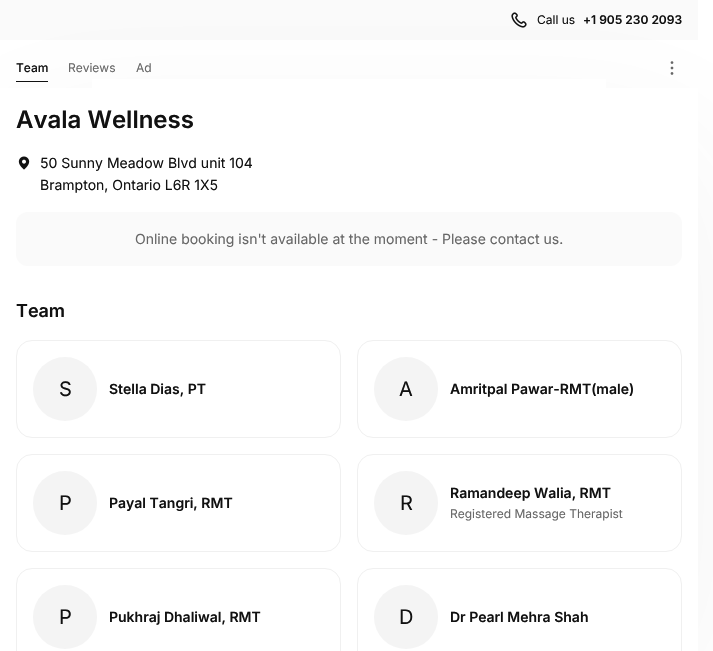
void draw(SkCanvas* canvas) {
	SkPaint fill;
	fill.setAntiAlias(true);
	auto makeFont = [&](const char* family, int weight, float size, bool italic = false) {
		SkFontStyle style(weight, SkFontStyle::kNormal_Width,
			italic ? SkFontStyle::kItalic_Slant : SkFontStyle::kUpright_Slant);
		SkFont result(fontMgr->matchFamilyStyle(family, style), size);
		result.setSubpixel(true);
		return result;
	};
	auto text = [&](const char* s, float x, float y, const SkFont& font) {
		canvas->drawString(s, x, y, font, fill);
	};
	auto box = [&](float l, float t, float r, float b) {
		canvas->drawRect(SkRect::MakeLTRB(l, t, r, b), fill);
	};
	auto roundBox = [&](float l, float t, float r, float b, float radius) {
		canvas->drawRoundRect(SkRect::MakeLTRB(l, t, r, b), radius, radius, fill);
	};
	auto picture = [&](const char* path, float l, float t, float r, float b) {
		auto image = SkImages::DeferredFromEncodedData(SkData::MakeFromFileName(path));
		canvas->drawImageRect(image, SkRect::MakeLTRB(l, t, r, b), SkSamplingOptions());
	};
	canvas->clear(0xFFFFFFFF);
	fill.setColor(0xFFFAFAFA);
	box(0, 0, 698, 40);
	fill.setColor(0x0F3F4447);
	fill.setMaskFilter(SkMaskFilter::MakeBlur(kNormal_SkBlurStyle, 80));
	canvas->drawRoundRect(SkRect::MakeLTRB(0, 140, 698, 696), 12, 12, fill);
	fill.setMaskFilter(nullptr);
	picture("image0.png", 511, 12, 527, 28);
	fill.setColor(0xFFFFFFFF);
	box(0, 88, 698, 651);
	box(92, 79, 606, 88);
	fill.setColor(0xFF111111);
	box(16, 81, 48, 82);
	picture("image1.png", 670, 61, 674, 75);
	picture("image2.png", 18, 156, 30, 170);
	fill.setColor(0xFFFAFAFA);
	roundBox(16, 212, 682, 266, 12);
	fill.setStyle(SkPaint::kStroke_Style);
	fill.setStrokeWidth(1);
	fill.setColor(0xFFF0F0F0);
	canvas->drawRoundRect(SkRect::MakeLTRB(16.5f, 340.5f, 340.5f, 437.5f), 15.5f, 15.5f, fill);
	fill.setStyle(SkPaint::kFill_Style);
	fill.setColor(0xFFF4F4F4);
	canvas->drawCircle(65, 389, 32, fill);
	fill.setStyle(SkPaint::kStroke_Style);
	fill.setColor(0xFFF0F0F0);
	canvas->drawRoundRect(SkRect::MakeLTRB(357.5f, 340.5f, 681.5f, 437.5f), 15.5f, 15.5f, fill);
	fill.setStyle(SkPaint::kFill_Style);
	fill.setColor(0xFFF4F4F4);
	canvas->drawCircle(406, 389, 32, fill);
	fill.setStyle(SkPaint::kStroke_Style);
	fill.setColor(0xFFF0F0F0);
	canvas->drawRoundRect(SkRect::MakeLTRB(16.5f, 454.5f, 340.5f, 551.5f), 15.5f, 15.5f, fill);
	fill.setStyle(SkPaint::kFill_Style);
	fill.setColor(0xFFF4F4F4);
	canvas->drawCircle(65, 503, 32, fill);
	fill.setStyle(SkPaint::kStroke_Style);
	fill.setColor(0xFFF0F0F0);
	canvas->drawRoundRect(SkRect::MakeLTRB(357.5f, 454.5f, 681.5f, 551.5f), 15.5f, 15.5f, fill);
	fill.setStyle(SkPaint::kFill_Style);
	fill.setColor(0xFFF4F4F4);
	canvas->drawCircle(406, 503, 32, fill);
	fill.setStyle(SkPaint::kStroke_Style);
	fill.setColor(0xFFF0F0F0);
	canvas->drawRoundRect(SkRect::MakeLTRB(16.5f, 568.5f, 340.5f, 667.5f), 15.5f, 15.5f, fill);
	fill.setStyle(SkPaint::kFill_Style);
	fill.setColor(0xFFF4F4F4);
	canvas->drawCircle(65, 617, 32, fill);
	fill.setStyle(SkPaint::kStroke_Style);
	fill.setColor(0xFFF0F0F0);
	canvas->drawRoundRect(SkRect::MakeLTRB(357.5f, 568.5f, 681.5f, 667.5f), 15.5f, 15.5f, fill);
	fill.setStyle(SkPaint::kFill_Style);
	fill.setColor(0xFFF4F4F4);
	canvas->drawCircle(406, 617, 32, fill);
	auto font1 = makeFont("Inter", 400, 12);
	fill.setColor(0xFF111111);
	text("Call us", 537, 24, font1);
	auto font2 = makeFont("Inter", 600, 12);
	text("+1 905 230 2093", 583, 24, font2);
	auto font3 = makeFont("Inter", 500, 12);
	text("Team", 16, 72, font3);
	fill.setColor(0xFF676767);
	text("Reviews", 68, 72, font1);
	text("Ad", 136, 72, font1);
	auto font4 = makeFont("Inter", 600, 24);
	fill.setColor(0xFF111111);
	text("Avala Wellness", 16, 128, font4);
	auto font5 = makeFont("Inter", 400, 14);
	text("50 Sunny Meadow Blvd unit 104", 40, 168, font5);
	text("Brampton, Ontario L6R 1X5", 40, 190, font5);
	fill.setColor(0xFF676767);
	text("Online booking isn't available at the moment - Please contact us.", 135, 244, font5);
	auto font6 = makeFont("Inter", 600, 18);
	fill.setColor(0xFF111111);
	text("Team", 16, 317, font6);
	auto font7 = makeFont("Inter", 400, 20);
	text("S", 59, 396, font7);
	auto font8 = makeFont("Inter", 600, 14);
	text("Stella Dias, PT", 109, 394, font8);
	text("A", 399, 396, font7);
	text("Amritpal Pawar-RMT(male)", 450, 394, font8);
	text("P", 59, 510, font7);
	text("Payal Tangri, RMT", 109, 508, font8);
	text("R", 400, 510, font7);
	text("Ramandeep Walia, RMT", 450, 498, font8);
	fill.setColor(0xFF676767);
	text("Registered Massage Therapist", 450, 518, font1);
	fill.setColor(0xFF111111);
	text("P", 59, 624, font7);
	text("Pukhraj Dhaliwal, RMT", 109, 622, font8);
	text("D", 399, 624, font7);
	text("Dr Pearl Mehra Shah", 450, 622, font8);
}
